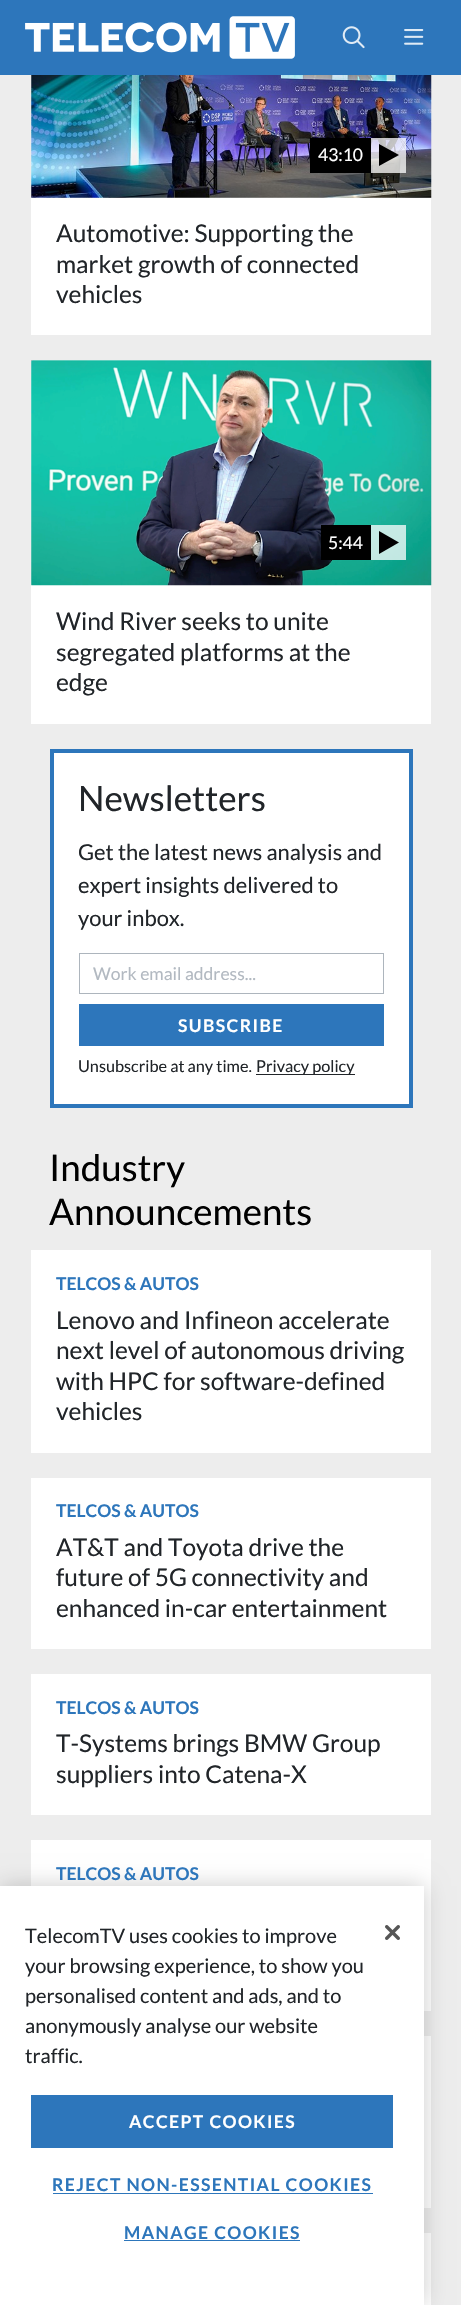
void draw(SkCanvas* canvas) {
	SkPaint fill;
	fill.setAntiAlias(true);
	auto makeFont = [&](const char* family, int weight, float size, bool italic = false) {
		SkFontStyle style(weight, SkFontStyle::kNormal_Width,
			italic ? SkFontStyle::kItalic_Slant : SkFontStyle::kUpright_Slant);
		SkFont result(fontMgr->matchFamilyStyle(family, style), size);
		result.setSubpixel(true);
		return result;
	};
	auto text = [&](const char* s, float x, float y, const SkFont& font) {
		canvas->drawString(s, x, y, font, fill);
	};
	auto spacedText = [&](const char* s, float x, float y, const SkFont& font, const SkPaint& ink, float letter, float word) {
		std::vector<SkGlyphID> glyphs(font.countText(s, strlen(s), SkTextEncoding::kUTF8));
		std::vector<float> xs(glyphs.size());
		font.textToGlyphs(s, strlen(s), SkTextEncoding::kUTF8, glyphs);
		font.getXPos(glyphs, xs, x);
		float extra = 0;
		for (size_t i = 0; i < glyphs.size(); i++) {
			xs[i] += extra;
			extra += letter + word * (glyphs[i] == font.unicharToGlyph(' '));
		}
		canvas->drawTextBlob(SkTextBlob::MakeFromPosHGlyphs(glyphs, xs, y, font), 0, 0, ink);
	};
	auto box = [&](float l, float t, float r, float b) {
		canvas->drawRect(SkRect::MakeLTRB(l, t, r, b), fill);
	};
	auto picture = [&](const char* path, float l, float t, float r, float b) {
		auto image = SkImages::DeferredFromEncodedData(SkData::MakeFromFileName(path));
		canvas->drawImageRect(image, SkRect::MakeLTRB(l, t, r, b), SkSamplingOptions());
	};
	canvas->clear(0xFFEDEDED);
	fill.setColor(0xFF2D76BB);
	box(0, 0, 461, 75);
	picture("image0.png", 25, 16, 295, 59);
	picture("image1.png", 342, 26, 365, 49);
	picture("image2.png", 404, 29, 424, 45);
	fill.setColor(0xFFFFFFFF);
	box(31, 198, 431, 335);
	fill.setColor(0xFFE9ECEF);
	box(31, 75, 431, 198);
	picture("image3.png", 31, 75, 432, 198);
	fill.setColor(0xBFFFFFFF);
	box(371, 138, 406, 173);
	fill.setColor(0xFF000000);
	box(310, 138, 371, 173);
	canvas->drawPath(SkPathBuilder().moveTo(379, 166).lineTo(379, 144).lineTo(399, 155).close().detach(), fill);
	fill.setColor(0xFFFFFFFF);
	box(31, 585, 431, 724);
	fill.setColor(0xFFE9ECEF);
	box(31, 360, 431, 585);
	picture("image4.png", 31, 360, 432, 586);
	fill.setColor(0xBFFFFFFF);
	box(371, 525, 406, 560);
	fill.setColor(0xFF000000);
	box(321, 525, 371, 560);
	canvas->drawPath(SkPathBuilder().moveTo(379, 554).lineTo(379, 531).lineTo(399, 542.5f).close().detach(), fill);
	fill.setColor(0xFFFFFFFF);
	canvas->drawRect(SkRect::MakeLTRB(52, 751, 411, 1106), fill);
	fill.setStyle(SkPaint::kStroke_Style);
	fill.setStrokeWidth(4);
	fill.setColor(0xFF2D76BB);
	canvas->drawRect(SkRect::MakeLTRB(52, 751, 411, 1106), fill);
	fill.setStrokeWidth(1);
	fill.setColor(0xFFADB5BD);
	canvas->drawRect(SkRect::MakeLTRB(79.5f, 953.5f, 383.5f, 993.5f), fill);
	fill.setStyle(SkPaint::kFill_Style);
	fill.setColor(0xFF2D76BB);
	box(79, 1004, 384, 1046);
	fill.setColor(0xFF212529);
	box(256, 1074, 355, 1075);
	fill.setColor(0xFFFFFFFF);
	box(31, 1250, 431, 1453);
	box(31, 1478, 431, 1649);
	box(31, 1674, 431, 1815);
	box(31, 1840, 431, 2011);
	box(424, 2036, 431, 2208);
	box(424, 2233, 431, 2305);
	fill.setColor(0x33000000);
	fill.setMaskFilter(SkMaskFilter::MakeBlur(kNormal_SkBlurStyle, 11));
	canvas->drawRect(SkRect::MakeLTRB(0, 1886, 424, 2305), fill);
	fill.setMaskFilter(nullptr);
	fill.setColor(0xFFFFFFFF);
	box(0, 1886, 424, 2305);
	picture("image5.png", 385, 1925, 400, 1940);
	fill.setColor(0xFF2D76BB);
	box(31, 2095, 393, 2148);
	box(53, 2193, 373, 2194);
	box(124, 2240, 300, 2241);
	auto font1 = makeFont("Lato", 400, 17.5f);
	fill.setColor(0xFFFFFFFF);
	text("43:10", 318, 161, font1);
	auto font2 = makeFont("Lato", 400, 24.5f);
	fill.setColor(0xFF212529);
	text("Automotive: Supporting the", 56, 242, font2);
	text("market growth of connected", 56, 273, font2);
	text("vehicles", 56, 303, font2);
	fill.setColor(0xFFFFFFFF);
	text("5:44", 328, 549, font1);
	fill.setColor(0xFF212529);
	text("Wind River seeks to unite", 56, 630, font2);
	text("segregated platforms at the", 56, 661, font2);
	text("edge", 56, 691, font2);
	auto font3 = makeFont("Lato", 400, 35);
	text("Newsletters", 78, 811, font3);
	auto font4 = makeFont("Lato", 400, 21.9f);
	text("Get the latest news analysis and", 78, 860, font4);
	text("expert insights delivered to", 78, 893, font4);
	text("your inbox.", 78, 926, font4);
	fill.setColor(0xFFB2B9C1);
	text("Work email address...", 93, 980, font1);
	auto font5 = makeFont("Lato", 700, 17.5f);
	fill.setColor(0xFFFFFFFF);
	spacedText("SUBSCRIBE", 178, 1032, font5, fill, 1.4f, 0);
	auto font6 = makeFont("Lato", 400, 16.25f);
	fill.setColor(0xFF212529);
	text("Unsubscribe at any time.", 78, 1072, font6);
	text("Privacy policy", 256, 1072, font6);
	auto font7 = makeFont("Lato", 400, 36.75f);
	fill.setColor(0xFF000000);
	text("Industry", 49, 1181, font7);
	text("Announcements", 49, 1225, font7);
	fill.setColor(0xFF2D76BB);
	text("TELCOS & AUTOS", 56, 1290, font5);
	fill.setColor(0xFF212529);
	text("Lenovo and Infineon accelerate", 56, 1329, font2);
	text("next level of autonomous driving", 56, 1359, font2);
	text("with HPC for software-defined", 56, 1390, font2);
	text("vehicles", 56, 1420, font2);
	fill.setColor(0xFF2D76BB);
	text("TELCOS & AUTOS", 56, 1517, font5);
	fill.setColor(0xFF212529);
	text("AT&T and Toyota drive the", 56, 1556, font2);
	text("future of 5G connectivity and", 56, 1586, font2);
	text("enhanced in-car entertainment", 56, 1617, font2);
	fill.setColor(0xFF2D76BB);
	text("TELCOS & AUTOS", 56, 1714, font5);
	fill.setColor(0xFF212529);
	text("T-Systems brings BMW Group", 56, 1752, font2);
	text("suppliers into Catena-X", 56, 1783, font2);
	fill.setColor(0xFF2D76BB);
	text("TELCOS & AUTOS", 56, 1880, font5);
	auto font8 = makeFont("Lato", 400, 20);
	fill.setColor(0xFF212529);
	text("TelecomTV uses cookies to improve", 25, 1943, font8);
	text("your browsing experience, to show you", 25, 1973, font8);
	text("personalised content and ads, and to", 25, 2003, font8);
	text("anonymously analyse our website", 25, 2033, font8);
	text("traffic.", 25, 2063, font8);
	fill.setColor(0xFFFFFFFF);
	spacedText("ACCEPT COOKIES", 129, 2128, font5, fill, 1.4f, 0);
	fill.setColor(0xFF2D76BB);
	spacedText("REJECT NON-ESSENTIAL COOKIES", 52, 2191, font5, fill, 1.4f, 0);
	spacedText("MANAGE COOKIES", 124, 2239, font5, fill, 1.4f, 0);
}
